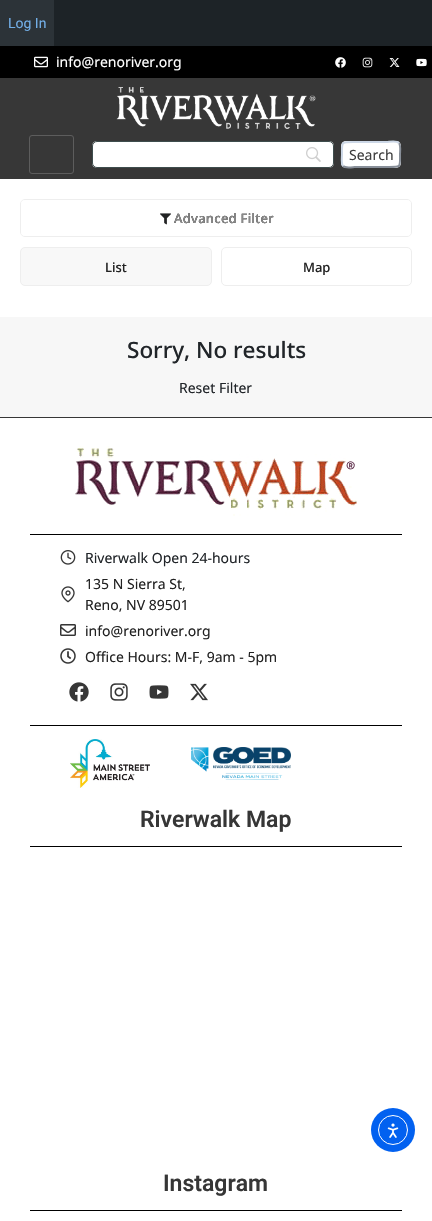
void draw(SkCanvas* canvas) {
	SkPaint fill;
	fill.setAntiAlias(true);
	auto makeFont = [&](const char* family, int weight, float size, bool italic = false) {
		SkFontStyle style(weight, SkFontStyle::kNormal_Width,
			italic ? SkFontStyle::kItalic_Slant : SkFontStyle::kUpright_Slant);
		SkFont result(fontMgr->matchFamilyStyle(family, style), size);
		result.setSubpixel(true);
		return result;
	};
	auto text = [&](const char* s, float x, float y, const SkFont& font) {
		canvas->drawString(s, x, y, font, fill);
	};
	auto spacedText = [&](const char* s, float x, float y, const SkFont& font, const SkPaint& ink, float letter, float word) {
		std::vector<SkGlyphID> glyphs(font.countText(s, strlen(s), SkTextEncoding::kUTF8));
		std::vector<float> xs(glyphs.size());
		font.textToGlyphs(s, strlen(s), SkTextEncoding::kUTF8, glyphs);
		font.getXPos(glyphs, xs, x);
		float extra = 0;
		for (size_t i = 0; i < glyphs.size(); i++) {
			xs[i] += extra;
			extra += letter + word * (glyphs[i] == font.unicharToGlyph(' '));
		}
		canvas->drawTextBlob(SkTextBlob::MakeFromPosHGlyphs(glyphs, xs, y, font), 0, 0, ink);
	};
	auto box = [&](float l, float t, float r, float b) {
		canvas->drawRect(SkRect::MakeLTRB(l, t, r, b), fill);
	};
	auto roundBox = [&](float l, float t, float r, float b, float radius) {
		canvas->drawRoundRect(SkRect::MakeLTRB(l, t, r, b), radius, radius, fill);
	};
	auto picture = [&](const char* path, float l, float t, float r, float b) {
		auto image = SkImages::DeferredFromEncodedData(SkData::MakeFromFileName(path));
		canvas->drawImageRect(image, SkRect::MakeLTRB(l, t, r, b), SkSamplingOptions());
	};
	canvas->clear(0xFFFFFFFF);
	fill.setColor(0xFF1D2327);
	box(54, 0, 432, 46);
	fill.setColor(0xFF2C3338);
	box(0, 0, 54, 46);
	fill.setColor(0xFF000000);
	box(0, 46, 432, 78);
	picture("image0.png", 34, 56, 48, 68);
	picture("image1.png", 335, 57, 346, 68);
	picture("image2.png", 362, 57, 373, 68);
	picture("image3.png", 389, 58, 400, 67);
	picture("image4.png", 416, 58, 427, 67);
	fill.setColor(0xFF373737);
	box(0, 78, 432, 179);
	picture("image5.png", 116, 87, 316, 129);
	fill.setStyle(SkPaint::kStroke_Style);
	fill.setStrokeWidth(1);
	fill.setColor(0xFF5D5D5D);
	canvas->drawRoundRect(SkRect::MakeLTRB(29.5f, 135.5f, 73.5f, 173.5f), 2.5f, 2.5f, fill);
	fill.setStyle(SkPaint::kFill_Style);
	fill.setColor(0xFFFFFFFF);
	roundBox(92, 141, 334, 168, 5);
	picture("image6.png", 306, 147, 321, 162);
	fill.setStyle(SkPaint::kStroke_Style);
	fill.setColor(0xCC0E2121);
	canvas->drawRoundRect(SkRect::MakeLTRB(92.5f, 141.5f, 333.5f, 167.5f), 4.5f, 4.5f, fill);
	fill.setStyle(SkPaint::kFill_Style);
	fill.setColor(0xFFFFFFFF);
	roundBox(341, 141, 401, 168, 5);
	fill.setStyle(SkPaint::kStroke_Style);
	fill.setStrokeWidth(2);
	fill.setColor(0xFF888F99);
	canvas->drawPath(SkPathBuilder().moveTo(399, 143).cubicTo(401, 145.5f, 400, 151.5f, 400, 154.5f).cubicTo(400, 167.5f, 401.5f, 167, 387.5f, 167).lineTo(354.5f, 167).cubicTo(353, 167, 345.5f, 168.5f, 343, 166).detach(), fill);
	fill.setColor(0xFFCCD7E6);
	canvas->drawPath(SkPathBuilder().moveTo(343, 166).cubicTo(341, 163.5f, 342, 157.5f, 342, 154.5f).cubicTo(342, 141.5f, 340.5f, 142, 354.5f, 142).lineTo(387.5f, 142).cubicTo(389, 142, 396.5f, 140.5f, 399, 143).detach(), fill);
	fill.setStrokeWidth(1);
	fill.setColor(0xFFEEEEEE);
	canvas->drawRoundRect(SkRect::MakeLTRB(20.5f, 199.5f, 411.5f, 236.5f), 4.5f, 4.5f, fill);
	fill.setStyle(SkPaint::kFill_Style);
	fill.setColor(0xFFFFFFFF);
	roundBox(21, 200, 411, 236, 4);
	picture("image7.png", 160, 213, 171, 225);
	fill.setColor(0xFFF8F8F8);
	canvas->drawRoundRect(SkRect::MakeLTRB(20.5f, 247.5f, 211.5f, 285.5f), 4.5f, 4.5f, fill);
	fill.setStyle(SkPaint::kStroke_Style);
	fill.setColor(0xFFEEEEEE);
	canvas->drawRoundRect(SkRect::MakeLTRB(20.5f, 247.5f, 211.5f, 285.5f), 4.5f, 4.5f, fill);
	canvas->drawRoundRect(SkRect::MakeLTRB(221.5f, 247.5f, 411.5f, 285.5f), 4.5f, 4.5f, fill);
	fill.setStyle(SkPaint::kFill_Style);
	fill.setColor(0xFFF7F7F7);
	box(0, 317, 432, 417);
	fill.setColor(0xFF373737);
	box(0, 417, 432, 418);
	picture("image8.png", 75, 446, 357, 516);
	fill.setColor(0xFF000000);
	box(30, 534, 402, 535);
	picture("image9.png", 60, 550, 76, 565);
	picture("image10.png", 61, 586, 75, 603);
	picture("image11.png", 60, 624, 76, 636);
	picture("image12.png", 60, 648, 76, 664);
	picture("image13.png", 69, 682, 89, 702);
	picture("image14.png", 110, 683, 128, 701);
	picture("image15.png", 149, 685, 169, 699);
	picture("image16.png", 190, 683, 208, 701);
	box(30, 725, 402, 726);
	picture("image17.png", 70, 739, 150, 788);
	picture("image18.png", 191, 747, 291, 780);
	box(30, 846, 402, 847);
	box(30, 1210, 402, 1211);
	fill.setColor(0xFF0261F0);
	canvas->drawCircle(393, 1130, 22, fill);
	fill.setStyle(SkPaint::kStroke_Style);
	fill.setColor(0xFFFFFFFF);
	canvas->drawCircle(393, 1130, 14.5f, fill);
	picture("image19.png", 387, 1123, 399, 1138);
	auto font1 = makeFont("Roboto", 400, 14);
	fill.setStyle(SkPaint::kFill_Style);
	fill.setColor(0xFF72AEE6);
	text("Log In", 8, 28, font1);
	auto font2 = makeFont("Noto Sans", 400, 14);
	fill.setColor(0xFFFFFFFF);
	text("info@renoriver.org", 56, 67, font2);
	fill.setColor(0xFF3F3F3F);
	text("Search", 349, 160, font2);
	auto font3 = makeFont("Noto Sans", 500, 13);
	fill.setColor(0xFF222222);
	spacedText("Advanced Filter", 174, 223, font3, fill, 0.25f, 0);
	fill.setColor(0xFF8A8A8A);
	spacedText("Advanced Filter", 174, 223, font3, fill, 0.25f, 0);
	fill.setColor(0xFF222222);
	text("List", 105, 272, font3);
	text("Map", 303, 272, font3);
	auto font4 = makeFont("Noto Sans", 500, 22.5f);
	fill.setColor(0xFF212529);
	text("Sorry, No results", 127, 358, font4);
	text("Reset Filter", 179, 393, font2);
	text("Riverwalk Open 24-hours", 85, 563, font2);
	fill.setColor(0xFF222222);
	text("135 N Sierra St,", 85, 589, font2);
	text("Reno, NV 89501", 85, 610, font2);
	text("info@renoriver.org", 85, 636, font2);
	text("Office Hours: M-F, 9am - 5pm", 85, 662, font2);
	auto font5 = makeFont("Roboto", 600, 23);
	fill.setColor(0xFF363636);
	text("Riverwalk Map", 140, 827, font5);
	text("Instagram", 163, 1191, font5);
}
